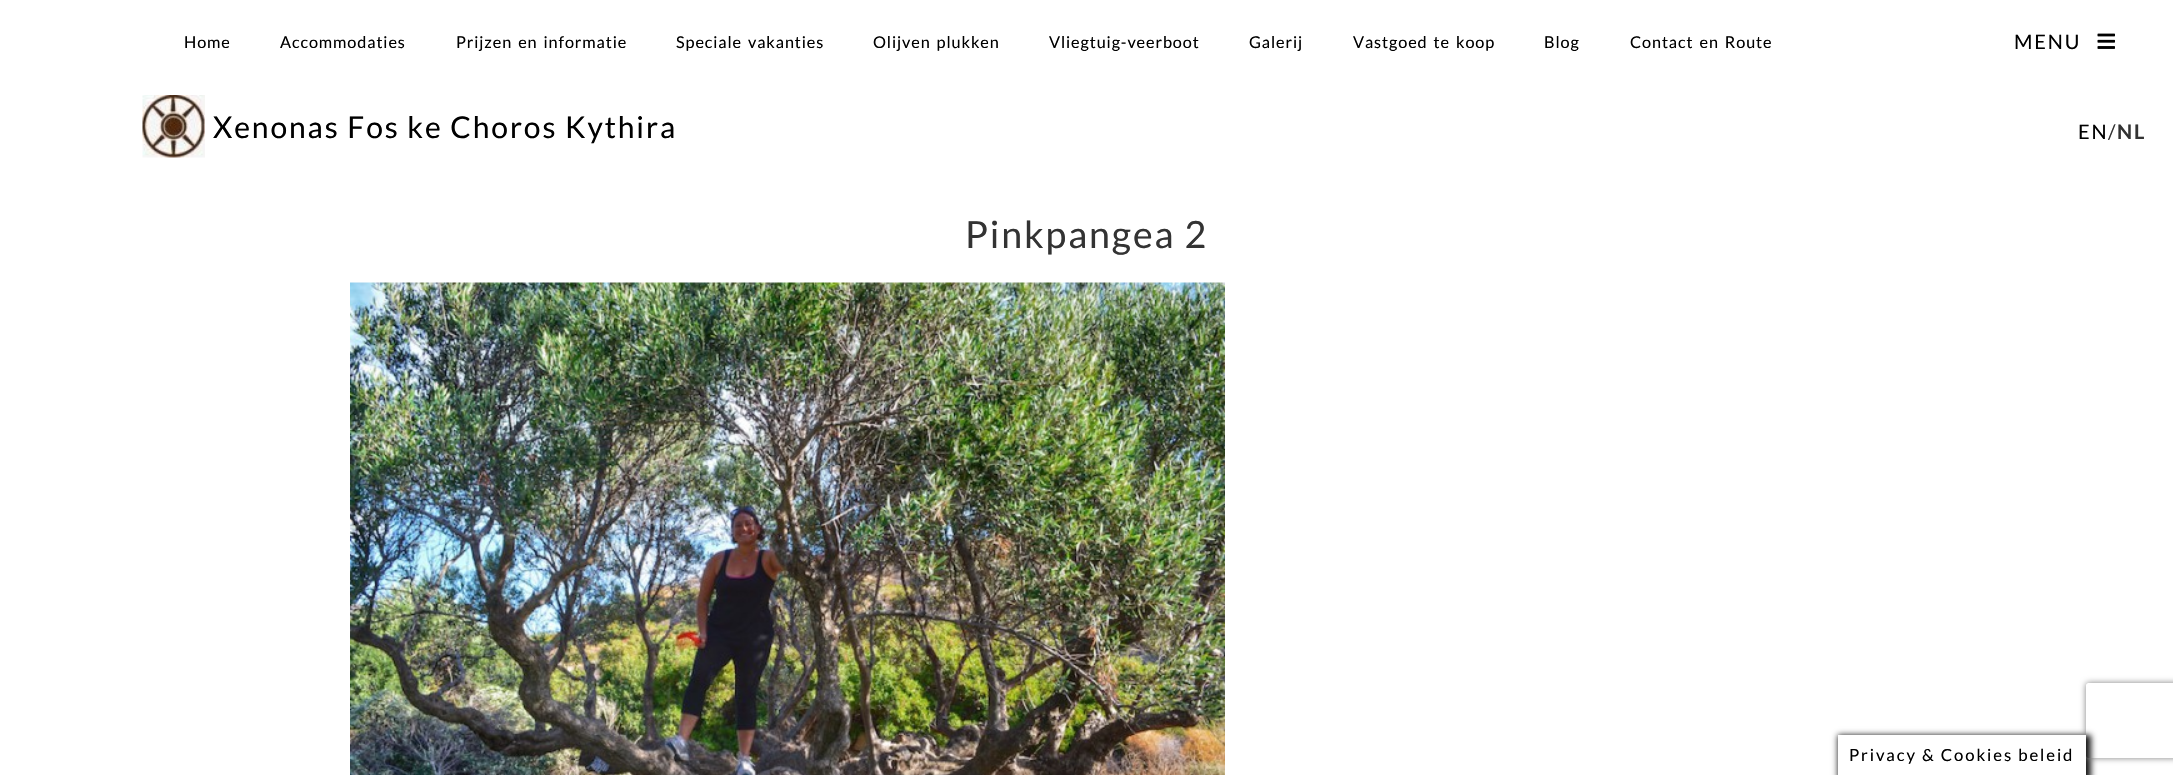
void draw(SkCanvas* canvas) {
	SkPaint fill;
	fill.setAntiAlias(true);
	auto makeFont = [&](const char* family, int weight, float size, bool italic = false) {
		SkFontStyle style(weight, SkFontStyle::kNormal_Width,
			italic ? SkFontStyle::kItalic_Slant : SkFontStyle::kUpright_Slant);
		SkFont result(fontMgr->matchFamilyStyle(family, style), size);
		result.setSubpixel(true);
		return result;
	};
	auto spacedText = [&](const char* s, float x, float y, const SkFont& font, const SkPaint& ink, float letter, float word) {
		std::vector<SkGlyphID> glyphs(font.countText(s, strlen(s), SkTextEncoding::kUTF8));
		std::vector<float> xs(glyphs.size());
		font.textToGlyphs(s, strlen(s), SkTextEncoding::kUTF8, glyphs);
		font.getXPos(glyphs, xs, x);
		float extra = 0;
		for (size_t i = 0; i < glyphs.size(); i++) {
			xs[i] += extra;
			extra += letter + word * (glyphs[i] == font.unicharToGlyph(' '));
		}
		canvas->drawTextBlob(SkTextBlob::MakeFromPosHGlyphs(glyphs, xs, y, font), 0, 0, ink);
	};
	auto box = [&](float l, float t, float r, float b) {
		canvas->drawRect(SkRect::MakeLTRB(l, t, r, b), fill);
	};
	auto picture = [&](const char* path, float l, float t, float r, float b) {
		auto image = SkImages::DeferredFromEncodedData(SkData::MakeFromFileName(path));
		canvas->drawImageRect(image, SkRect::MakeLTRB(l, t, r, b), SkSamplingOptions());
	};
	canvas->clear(0xFFFFFFFF);
	picture("image0.png", 2097, 33, 2115, 49);
	picture("image1.png", 142, 95, 205, 158);
	picture("image2.png", 350, 282, 1225, 775);
	fill.setColor(0xFF161616);
	fill.setMaskFilter(SkMaskFilter::MakeBlur(kNormal_SkBlurStyle, 3));
	canvas->drawRect(SkRect::MakeLTRB(1838, 735, 2091, 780), fill);
	fill.setMaskFilter(nullptr);
	canvas->save();
	canvas->clipPath(SkPathBuilder(SkPathFillType::kEvenOdd).moveTo(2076, 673).lineTo(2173, 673).lineTo(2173, 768).lineTo(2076, 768).close().moveTo(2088.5f, 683).lineTo(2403.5f, 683).cubicTo(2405, 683, 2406, 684, 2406, 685.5f).lineTo(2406, 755.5f).cubicTo(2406, 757, 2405, 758, 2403.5f, 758).lineTo(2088.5f, 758).cubicTo(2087, 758, 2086, 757, 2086, 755.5f).lineTo(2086, 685.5f).cubicTo(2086, 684, 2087, 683, 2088.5f, 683).close().detach(), true);
	fill.setColor(0xFF808080);
	fill.setMaskFilter(SkMaskFilter::MakeBlur(kNormal_SkBlurStyle, 3));
	canvas->drawRoundRect(SkRect::MakeLTRB(2086, 683, 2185, 758), 2.5f, 2.5f, fill);
	fill.setMaskFilter(nullptr);
	canvas->restore();
	fill.setColor(0xFFFFFFFF);
	box(1838, 735, 2086, 775);
	auto font1 = makeFont("Lato", 400, 16.25f);
	fill.setColor(0xFF000000);
	spacedText("Home", 184, 48, font1, fill, 0.9f, 0);
	spacedText("Accommodaties", 280, 48, font1, fill, 0.9f, 0);
	spacedText("Prijzen en informatie", 456, 48, font1, fill, 0.9f, 2);
	spacedText("Speciale vakanties", 676, 48, font1, fill, 0.9f, 2);
	spacedText("Olijven plukken", 873, 48, font1, fill, 0.9f, 2);
	spacedText("Vliegtuig-veerboot", 1049, 48, font1, fill, 0.9f, 0);
	spacedText("Galerij", 1249, 48, font1, fill, 0.9f, 0);
	spacedText("Vastgoed te koop", 1353, 48, font1, fill, 0.9f, 2);
	spacedText("Blog", 1544, 48, font1, fill, 0.9f, 0);
	spacedText("Contact en Route", 1630, 48, font1, fill, 0.9f, 2);
	auto font2 = makeFont("Lato", 400, 20);
	spacedText("MENU", 2014, 49, font2, fill, 1.9f, 0);
	auto font3 = makeFont("Lato", 400, 30);
	spacedText("Xenonas Fos ke Choros Kythira", 213, 138, font3, fill, 1.9f, 0);
	spacedText("EN", 2078, 139, font2, fill, 1.9f, 0);
	fill.setColor(0xFF333333);
	spacedText("/", 2108, 139, font2, fill, 1.9f, 0);
	auto font4 = makeFont("Lato", 700, 20);
	spacedText("NL", 2117, 139, font4, fill, 1.9f, 0);
	auto font5 = makeFont("Lato", 400, 37.5f);
	spacedText("Pinkpangea 2", 965, 248, font5, fill, 1.9f, 0);
	auto font6 = makeFont("Lato", 400, 16.7f);
	fill.setColor(0xFF000000);
	spacedText("Privacy & Cookies beleid", 1849, 761, font6, fill, 1.9f, 0);
}
